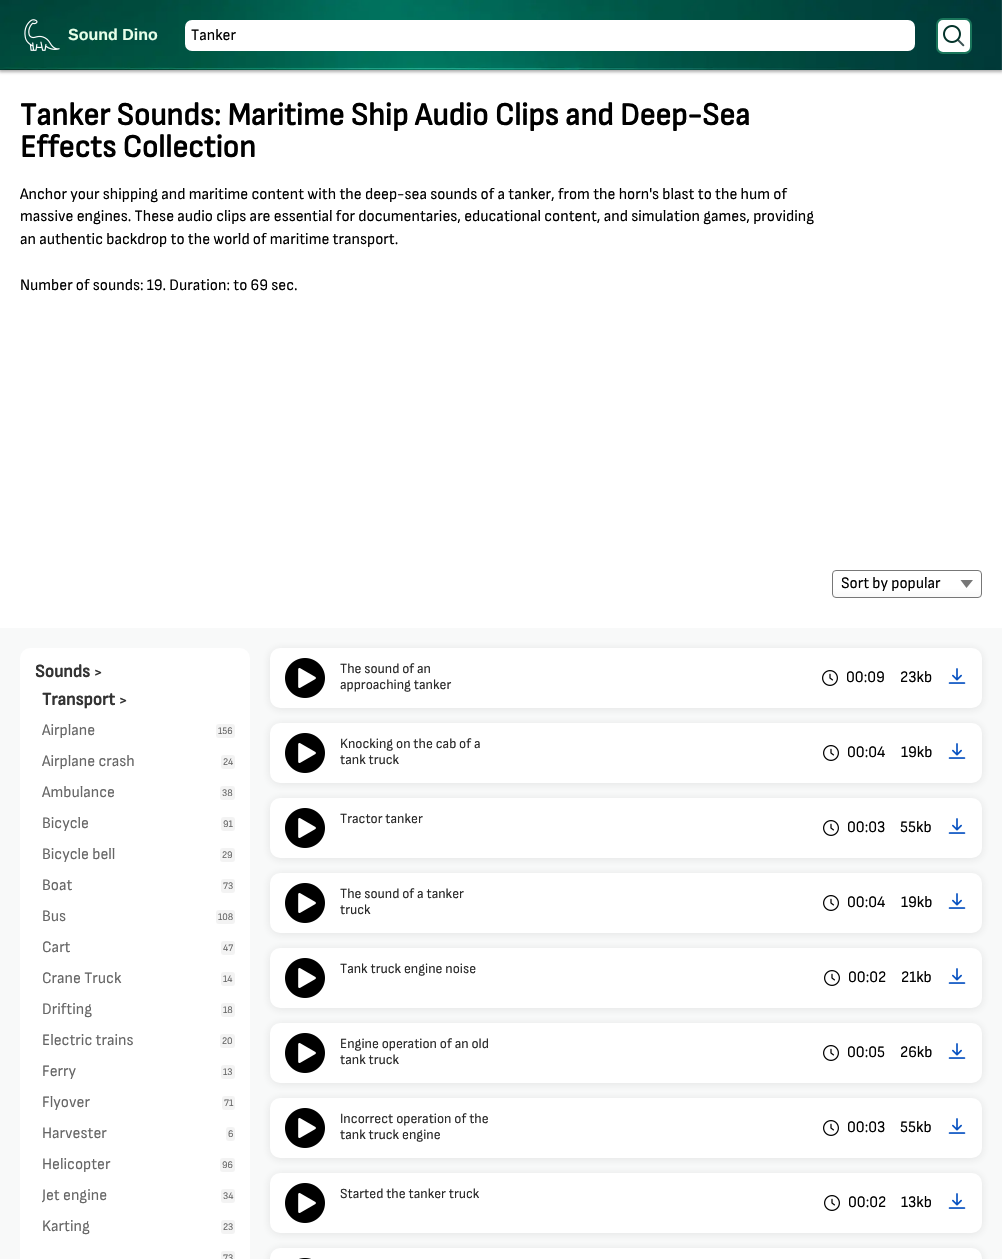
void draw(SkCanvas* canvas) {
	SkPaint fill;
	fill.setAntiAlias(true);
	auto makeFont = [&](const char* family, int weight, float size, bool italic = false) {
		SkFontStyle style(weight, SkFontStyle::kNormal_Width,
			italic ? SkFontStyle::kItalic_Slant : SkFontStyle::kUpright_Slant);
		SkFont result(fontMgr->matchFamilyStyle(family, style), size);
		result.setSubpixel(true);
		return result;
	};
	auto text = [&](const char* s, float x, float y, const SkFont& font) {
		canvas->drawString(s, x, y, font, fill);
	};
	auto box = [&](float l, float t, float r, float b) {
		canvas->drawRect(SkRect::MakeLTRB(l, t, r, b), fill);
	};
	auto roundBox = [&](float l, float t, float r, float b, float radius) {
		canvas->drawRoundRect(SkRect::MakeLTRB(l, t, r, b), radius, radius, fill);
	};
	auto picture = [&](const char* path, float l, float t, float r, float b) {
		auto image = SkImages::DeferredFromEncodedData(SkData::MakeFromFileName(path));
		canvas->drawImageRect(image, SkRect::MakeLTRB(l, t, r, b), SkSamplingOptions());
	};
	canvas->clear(0xFFF8F9F9);
	fill.setColor(0xFFFFFFFF);
	box(0, 70, 1002, 628);
	fill.setColor(0xFFADADAD);
	fill.setMaskFilter(SkMaskFilter::MakeBlur(kNormal_SkBlurStyle, 1.5f));
	canvas->drawRect(SkRect::MakeLTRB(-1, 0, 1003, 72), fill);
	fill.setMaskFilter(nullptr);
	picture("image0.png", 0, 0, 1002, 70);
	picture("image1.png", 24, 19, 60, 51);
	fill.setColor(0xFFFFFFFF);
	roundBox(185, 20, 915, 51, 7);
	canvas->drawRoundRect(SkRect::MakeLTRB(937, 19, 971, 53), 6, 6, fill);
	fill.setStyle(SkPaint::kStroke_Style);
	fill.setStrokeWidth(2);
	fill.setColor(0xFF1A765B);
	canvas->drawRoundRect(SkRect::MakeLTRB(937, 19, 971, 53), 6, 6, fill);
	picture("image2.png", 943, 25, 965, 47);
	canvas->save();
	canvas->clipPath(SkPathBuilder().moveTo(836, 570).lineTo(978, 570).cubicTo(980, 570, 982, 572, 982, 574).lineTo(982, 594).cubicTo(982, 596, 980, 598, 978, 598).lineTo(836, 598).cubicTo(834, 598, 832, 596, 832, 594).lineTo(832, 574).cubicTo(832, 572, 834, 570, 836, 570).close().detach(), true);
	fill.setStyle(SkPaint::kFill_Style);
	{
		const SkColor colors[] = {0xFFF9F9F9, 0xFFFFFFFF};
		const float stops[] = {0, 0.33f};
		const SkPoint ends[] = {{907, 597}, {907, 571}};
		fill.setShader(SkGradientShader::MakeLinear(ends, colors, stops, 2, SkTileMode::kClamp));
		fill.setAlpha(255);
	}
	box(832, 571, 982, 597);
	canvas->restore();
	fill.setStyle(SkPaint::kStroke_Style);
	fill.setStrokeWidth(1);
	fill.setShader(nullptr);
	fill.setColor(0xFF777777);
	canvas->drawRoundRect(SkRect::MakeLTRB(832.5f, 570.5f, 981.5f, 597.5f), 3.5f, 3.5f, fill);
	fill.setStyle(SkPaint::kFill_Style);
	canvas->drawPath(SkPathBuilder().moveTo(973, 580).lineTo(960.5f, 580).lineTo(966.5f, 588).close().detach(), fill);
	fill.setColor(0xFFFFFFFF);
	roundBox(20, 648, 250, 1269, 10);
	fill.setColor(0xFFF3F3F3);
	roundBox(216, 724, 235, 738, 3);
	roundBox(221, 755, 235, 769, 3);
	roundBox(220, 786, 235, 800, 3);
	roundBox(221, 817, 235, 831, 3);
	roundBox(220, 848, 235, 862, 3);
	roundBox(221, 879, 235, 893, 3);
	roundBox(216, 910, 235, 924, 3);
	roundBox(221, 941, 235, 955, 3);
	roundBox(221, 972, 235, 986, 3);
	roundBox(221, 1003, 235, 1017, 3);
	roundBox(220, 1034, 235, 1048, 3);
	roundBox(221, 1065, 235, 1079, 3);
	roundBox(222, 1096, 235, 1110, 3);
	roundBox(226, 1127, 235, 1141, 3);
	roundBox(220, 1158, 235, 1172, 3);
	roundBox(221, 1189, 235, 1203, 3);
	roundBox(221, 1220, 235, 1234, 3);
	roundBox(221, 1251, 235, 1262, 3);
	fill.setColor(0x1A2B2B2B);
	fill.setMaskFilter(SkMaskFilter::MakeBlur(kNormal_SkBlurStyle, 4));
	canvas->drawRoundRect(SkRect::MakeLTRB(270, 649, 982, 709), 10, 10, fill);
	fill.setMaskFilter(nullptr);
	fill.setColor(0xFFFFFFFF);
	roundBox(270, 648, 982, 708, 10);
	picture("image3.png", 285, 658, 325, 698);
	picture("image4.png", 822, 670, 838, 686);
	picture("image5.png", 948, 668, 966, 684);
	fill.setColor(0x1A2B2B2B);
	fill.setMaskFilter(SkMaskFilter::MakeBlur(kNormal_SkBlurStyle, 4));
	canvas->drawRoundRect(SkRect::MakeLTRB(270, 724, 982, 784), 10, 10, fill);
	fill.setMaskFilter(nullptr);
	fill.setColor(0xFFFFFFFF);
	roundBox(270, 723, 982, 783, 10);
	picture("image3.png", 285, 733, 325, 773);
	picture("image4.png", 823, 745, 839, 761);
	picture("image5.png", 948, 743, 966, 759);
	fill.setColor(0x1A2B2B2B);
	fill.setMaskFilter(SkMaskFilter::MakeBlur(kNormal_SkBlurStyle, 4));
	canvas->drawRoundRect(SkRect::MakeLTRB(270, 799, 982, 859), 10, 10, fill);
	fill.setMaskFilter(nullptr);
	fill.setColor(0xFFFFFFFF);
	roundBox(270, 798, 982, 858, 10);
	picture("image3.png", 285, 808, 325, 848);
	picture("image4.png", 823, 820, 839, 836);
	picture("image5.png", 948, 818, 966, 834);
	fill.setColor(0x1A2B2B2B);
	fill.setMaskFilter(SkMaskFilter::MakeBlur(kNormal_SkBlurStyle, 4));
	canvas->drawRoundRect(SkRect::MakeLTRB(270, 874, 982, 934), 10, 10, fill);
	fill.setMaskFilter(nullptr);
	fill.setColor(0xFFFFFFFF);
	roundBox(270, 873, 982, 933, 10);
	picture("image3.png", 285, 883, 325, 923);
	picture("image4.png", 823, 895, 839, 911);
	picture("image5.png", 948, 893, 966, 909);
	fill.setColor(0x1A2B2B2B);
	fill.setMaskFilter(SkMaskFilter::MakeBlur(kNormal_SkBlurStyle, 4));
	canvas->drawRoundRect(SkRect::MakeLTRB(270, 949, 982, 1009), 10, 10, fill);
	fill.setMaskFilter(nullptr);
	fill.setColor(0xFFFFFFFF);
	roundBox(270, 948, 982, 1008, 10);
	picture("image3.png", 285, 958, 325, 998);
	picture("image4.png", 824, 970, 840, 986);
	picture("image5.png", 948, 968, 966, 984);
	fill.setColor(0x1A2B2B2B);
	fill.setMaskFilter(SkMaskFilter::MakeBlur(kNormal_SkBlurStyle, 4));
	canvas->drawRoundRect(SkRect::MakeLTRB(270, 1024, 982, 1084), 10, 10, fill);
	fill.setMaskFilter(nullptr);
	fill.setColor(0xFFFFFFFF);
	roundBox(270, 1023, 982, 1083, 10);
	picture("image3.png", 285, 1033, 325, 1073);
	picture("image4.png", 823, 1045, 839, 1061);
	picture("image5.png", 948, 1043, 966, 1059);
	fill.setColor(0x1A2B2B2B);
	fill.setMaskFilter(SkMaskFilter::MakeBlur(kNormal_SkBlurStyle, 4));
	canvas->drawRoundRect(SkRect::MakeLTRB(270, 1099, 982, 1159), 10, 10, fill);
	fill.setMaskFilter(nullptr);
	fill.setColor(0xFFFFFFFF);
	roundBox(270, 1098, 982, 1158, 10);
	picture("image3.png", 285, 1108, 325, 1148);
	picture("image4.png", 823, 1120, 839, 1136);
	picture("image5.png", 948, 1118, 966, 1134);
	fill.setColor(0x1A2B2B2B);
	fill.setMaskFilter(SkMaskFilter::MakeBlur(kNormal_SkBlurStyle, 4));
	canvas->drawRoundRect(SkRect::MakeLTRB(270, 1174, 982, 1234), 10, 10, fill);
	fill.setMaskFilter(nullptr);
	fill.setColor(0xFFFFFFFF);
	roundBox(270, 1173, 982, 1233, 10);
	picture("image3.png", 285, 1183, 325, 1223);
	picture("image4.png", 824, 1195, 840, 1211);
	picture("image5.png", 948, 1193, 966, 1209);
	fill.setColor(0x1A2B2B2B);
	fill.setMaskFilter(SkMaskFilter::MakeBlur(kNormal_SkBlurStyle, 4));
	canvas->drawRoundRect(SkRect::MakeLTRB(270, 1249, 982, 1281), 10, 10, fill);
	fill.setMaskFilter(nullptr);
	fill.setColor(0xFFFFFFFF);
	roundBox(270, 1248, 982, 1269, 10);
	picture("image6.png", 299, 1258, 311, 1259);
	auto font1 = makeFont("Liberation Sans", 700, 16);
	fill.setColor(0xFFE7FFE9);
	text("Sound Dino", 68, 40, font1);
	auto font2 = makeFont("Sofia Sans Semi Condensed", 400, 16);
	fill.setColor(0xFF000000);
	text("Tanker", 191, 40, font2);
	auto font3 = makeFont("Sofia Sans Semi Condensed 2", 700, 32);
	text("Tanker Sounds: Maritime Ship Audio Clips and Deep-Sea", 20, 125, font3);
	text("Effects Collection", 20, 157, font3);
	text("Anchor your shipping and maritime content with the deep-sea sounds of a tanker, from the horn's blast to the hum of", 20, 199, font2);
	text("massive engines. These audio clips are essential for documentaries, educational content, and simulation games, providing", 20, 221, font2);
	text("an authentic backdrop to the world of maritime transport.", 20, 244, font2);
	text("Number of sounds: 19. Duration: to 69 sec.", 20, 290, font2);
	text("Sort by popular", 841, 588, font2);
	auto font4 = makeFont("Sofia Sans Semi Condensed", 700, 18);
	fill.setColor(0xFF333333);
	text("Sounds", 35, 677, font4);
	auto font5 = makeFont("Sofia Sans Semi Condensed 2", 700, 14);
	text(">", 94, 677, font5);
	text("Transport", 42, 705, font4);
	text(">", 119, 705, font5);
	fill.setColor(0xFF666666);
	text("Airplane", 42, 735, font2);
	auto font6 = makeFont("Sofia Sans Semi Condensed", 400, 10);
	text("156", 218, 734, font6);
	text("Airplane crash", 42, 766, font2);
	text("24", 223, 765, font6);
	text("Ambulance", 42, 797, font2);
	text("38", 222, 796, font6);
	text("Bicycle", 42, 828, font2);
	text("91", 223, 827, font6);
	text("Bicycle bell", 42, 859, font2);
	text("29", 222, 858, font6);
	text("Boat", 42, 890, font2);
	text("73", 223, 889, font6);
	text("Bus", 42, 921, font2);
	text("108", 218, 920, font6);
	text("Cart", 42, 952, font2);
	text("47", 223, 951, font6);
	text("Crane Truck", 42, 983, font2);
	text("14", 223, 982, font6);
	text("Drifting", 42, 1014, font2);
	text("18", 223, 1013, font6);
	text("Electric trains", 42, 1045, font2);
	text("20", 222, 1044, font6);
	text("Ferry", 42, 1076, font2);
	text("13", 223, 1075, font6);
	text("Flyover", 42, 1107, font2);
	text("71", 224, 1106, font6);
	text("Harvester", 42, 1138, font2);
	text("6", 228, 1137, font6);
	text("Helicopter", 42, 1169, font2);
	text("96", 222, 1168, font6);
	text("Jet engine", 42, 1200, font2);
	text("34", 223, 1199, font6);
	text("Karting", 42, 1231, font2);
	text("23", 223, 1230, font6);
	text("73", 223, 1261, font6);
	auto font7 = makeFont("Sofia Sans Semi Condensed", 400, 14);
	fill.setColor(0xFF2A2A2A);
	text("The sound of an", 340, 673, font7);
	text("approaching tanker", 340, 689, font7);
	fill.setColor(0xFF000000);
	text("00:09", 846, 682, font2);
	text("23kb", 900, 682, font2);
	fill.setColor(0xFF2A2A2A);
	text("Knocking on the cab of a", 340, 748, font7);
	text("tank truck", 340, 764, font7);
	fill.setColor(0xFF000000);
	text("00:04", 847, 757, font2);
	text("19kb", 901, 757, font2);
	fill.setColor(0xFF2A2A2A);
	text("Tractor tanker", 340, 823, font7);
	fill.setColor(0xFF000000);
	text("00:03", 847, 832, font2);
	text("55kb", 900, 832, font2);
	fill.setColor(0xFF2A2A2A);
	text("The sound of a tanker", 340, 898, font7);
	text("truck", 340, 914, font7);
	fill.setColor(0xFF000000);
	text("00:04", 847, 907, font2);
	text("19kb", 901, 907, font2);
	fill.setColor(0xFF2A2A2A);
	text("Tank truck engine noise", 340, 973, font7);
	fill.setColor(0xFF000000);
	text("00:02", 848, 982, font2);
	text("21kb", 901, 982, font2);
	fill.setColor(0xFF2A2A2A);
	text("Engine operation of an old", 340, 1048, font7);
	text("tank truck", 340, 1064, font7);
	fill.setColor(0xFF000000);
	text("00:05", 847, 1057, font2);
	text("26kb", 900, 1057, font2);
	fill.setColor(0xFF2A2A2A);
	text("Incorrect operation of the", 340, 1123, font7);
	text("tank truck engine", 340, 1139, font7);
	fill.setColor(0xFF000000);
	text("00:03", 847, 1132, font2);
	text("55kb", 900, 1132, font2);
	fill.setColor(0xFF2A2A2A);
	text("Started the tanker truck", 340, 1198, font7);
	fill.setColor(0xFF000000);
	text("00:02", 848, 1207, font2);
	text("13kb", 901, 1207, font2);
}
